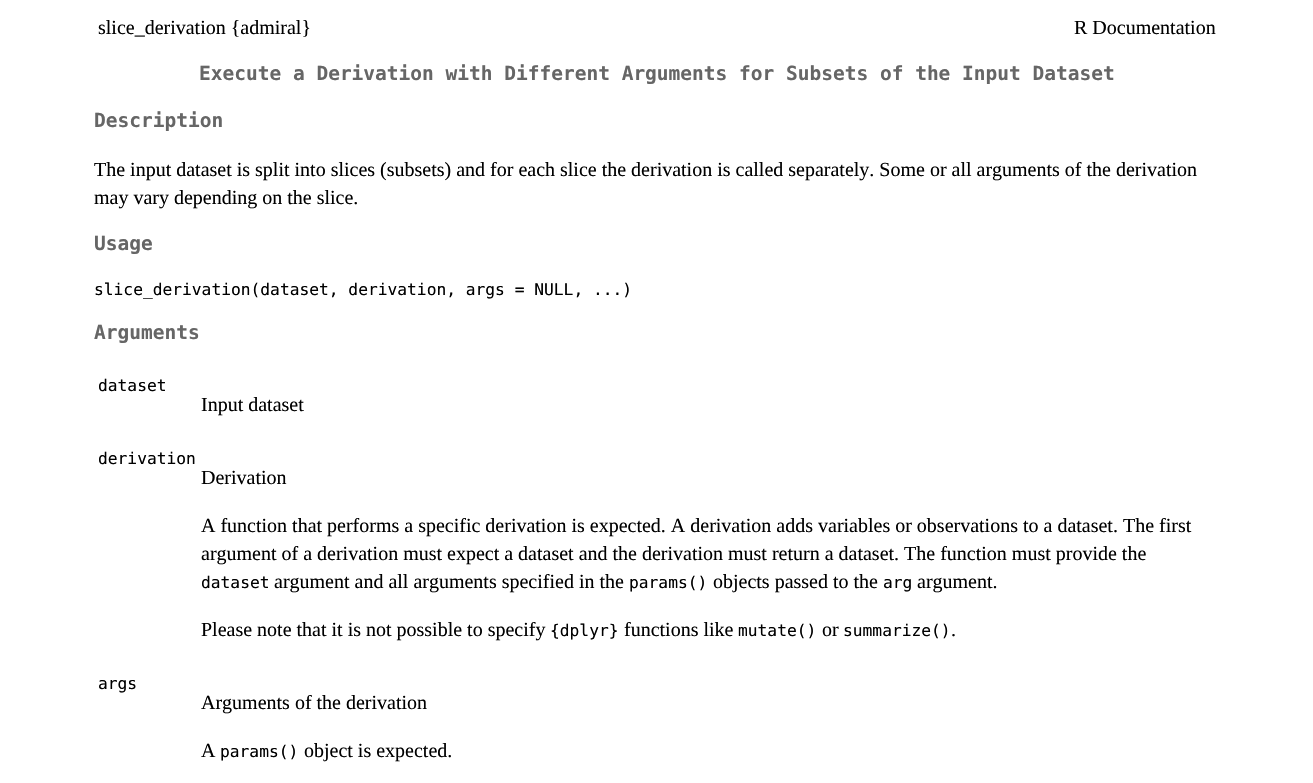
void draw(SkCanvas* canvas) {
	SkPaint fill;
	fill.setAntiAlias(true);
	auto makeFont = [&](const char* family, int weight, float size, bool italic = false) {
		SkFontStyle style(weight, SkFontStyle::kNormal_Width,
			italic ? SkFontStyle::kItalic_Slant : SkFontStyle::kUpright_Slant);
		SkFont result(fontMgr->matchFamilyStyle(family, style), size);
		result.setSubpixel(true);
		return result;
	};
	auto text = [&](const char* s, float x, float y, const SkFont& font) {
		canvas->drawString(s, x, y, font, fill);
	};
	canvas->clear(0xFFFFFFFF);
	auto font1 = makeFont("Liberation Serif", 400, 20);
	fill.setColor(0xFF000000);
	text("slice_derivation {admiral}", 98, 34, font1);
	text("R Documentation", 1074, 34, font1);
	auto font2 = makeFont("DejaVu Sans Mono", 700, 19.5f);
	fill.setColor(0xFF666666);
	text("Execute a Derivation with Different Arguments for Subsets of the Input Dataset", 199, 80, font2);
	text("Description", 94, 127, font2);
	fill.setColor(0xFF000000);
	text("The input dataset is split into slices (subsets) and for each slice the derivation is called separately. Some or all arguments of the derivation", 94, 176, font1);
	text("may vary depending on the slice.", 94, 204, font1);
	fill.setColor(0xFF666666);
	text("Usage", 94, 250, font2);
	auto font3 = makeFont("DejaVu Sans Mono", 400, 16.25f);
	fill.setColor(0xFF000000);
	text("slice_derivation(dataset, derivation, args = NULL, ...)", 94, 295, font3);
	fill.setColor(0xFF666666);
	text("Arguments", 94, 339, font2);
	fill.setColor(0xFF000000);
	text("dataset", 98, 391, font3);
	text("Input dataset", 201, 411, font1);
	text("derivation", 98, 464, font3);
	text("Derivation", 201, 484, font1);
	text("A function that performs a specific derivation is expected. A derivation adds variables or observations to a dataset. The first", 201, 532, font1);
	text("argument of a derivation must expect a dataset and the derivation must return a dataset. The function must provide the", 201, 560, font1);
	text("dataset", 201, 588, font3);
	text("argument and all arguments specified in the", 274, 588, font1);
	text("params()", 629, 588, font3);
	text("objects passed to the", 713, 588, font1);
	text("arg", 883, 588, font3);
	text("argument.", 917, 588, font1);
	text("Please note that it is not possible to specify", 201, 636, font1);
	text("{dplyr}", 550, 636, font3);
	text("functions like", 624, 636, font1);
	text("mutate()", 738, 636, font3);
	text("or", 822, 636, font1);
	text("summarize()", 843, 636, font3);
	text(".", 951, 636, font1);
	text("args", 98, 689, font3);
	text("Arguments of the derivation", 201, 709, font1);
	text("A", 201, 757, font1);
	text("params()", 220, 757, font3);
	text("object is expected.", 304, 757, font1);
}
